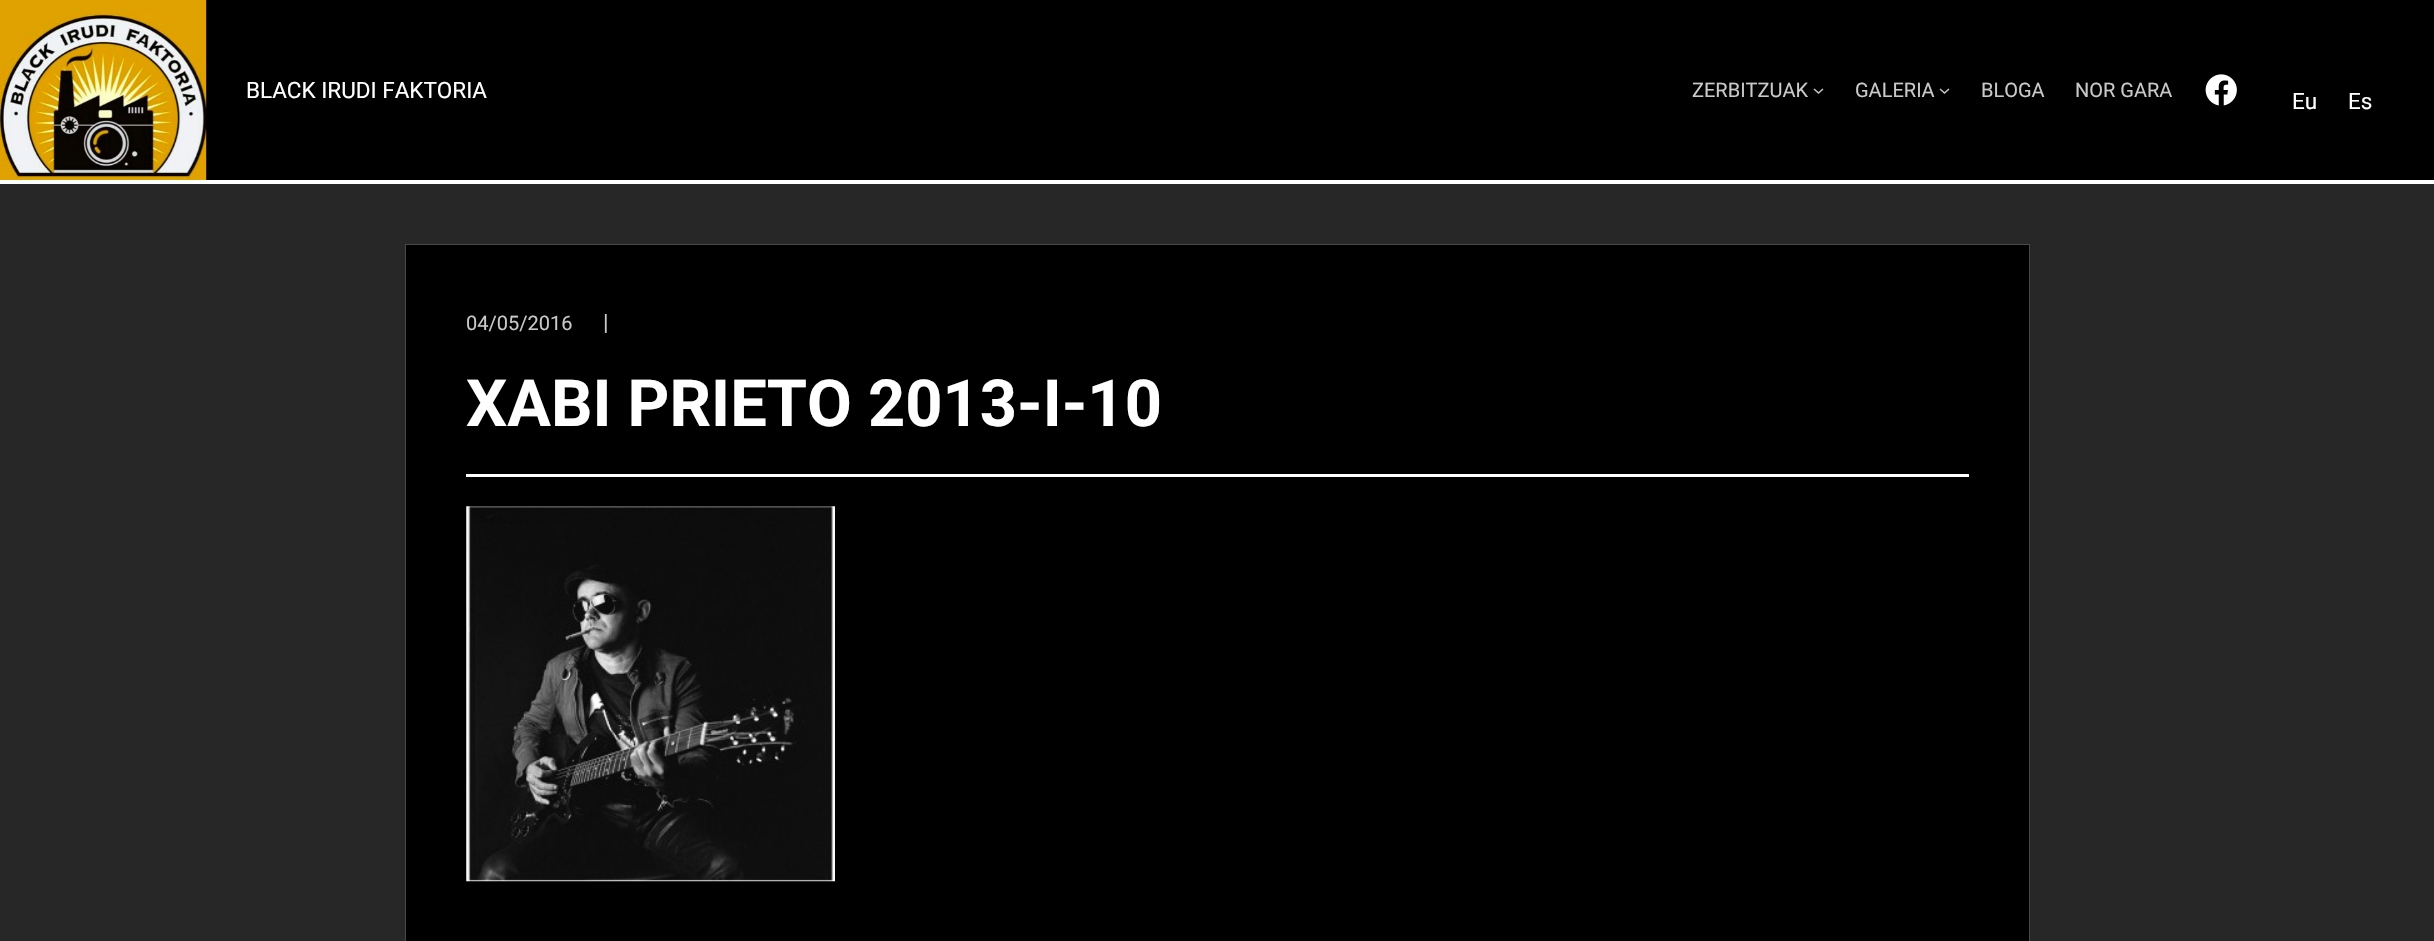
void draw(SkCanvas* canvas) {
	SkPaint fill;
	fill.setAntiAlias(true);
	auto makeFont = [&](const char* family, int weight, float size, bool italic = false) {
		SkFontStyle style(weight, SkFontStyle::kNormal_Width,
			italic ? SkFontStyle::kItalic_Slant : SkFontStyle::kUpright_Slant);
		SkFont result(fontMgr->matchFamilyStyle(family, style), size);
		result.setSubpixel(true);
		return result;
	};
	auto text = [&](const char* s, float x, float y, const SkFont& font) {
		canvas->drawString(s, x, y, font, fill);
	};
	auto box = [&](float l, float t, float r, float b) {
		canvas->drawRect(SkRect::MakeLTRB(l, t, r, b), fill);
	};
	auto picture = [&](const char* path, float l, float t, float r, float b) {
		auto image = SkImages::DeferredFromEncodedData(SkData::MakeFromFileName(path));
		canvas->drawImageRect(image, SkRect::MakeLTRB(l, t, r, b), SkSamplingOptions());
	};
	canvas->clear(0xFF272727);
	fill.setColor(0xFF000000);
	box(206, 0, 2434, 180);
	fill.setColor(0xFFFFFFFF);
	box(0, 180, 2434, 184);
	picture("image0.png", 0, 0, 207, 180);
	fill.setStyle(SkPaint::kStroke_Style);
	fill.setStrokeWidth(1.5f);
	fill.setColor(0xFFC9C9C9);
	canvas->drawPath(SkPathBuilder().moveTo(1814, 89).lineTo(1818.5f, 93).lineTo(1823, 89).detach(), fill);
	canvas->drawPath(SkPathBuilder().moveTo(1940, 89).lineTo(1944.5f, 93).lineTo(1949, 89).detach(), fill);
	picture("image1.png", 2205, 74, 2237, 106);
	fill.setStyle(SkPaint::kFill_Style);
	fill.setColor(0xFF000000);
	canvas->drawRect(SkRect::MakeLTRB(405.5f, 244.5f, 2029.5f, 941.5f), fill);
	fill.setStyle(SkPaint::kStroke_Style);
	fill.setStrokeWidth(1);
	fill.setColor(0xFF47494A);
	canvas->drawRect(SkRect::MakeLTRB(405.5f, 244.5f, 2029.5f, 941.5f), fill);
	fill.setStyle(SkPaint::kFill_Style);
	fill.setColor(0xFFFFFFFF);
	box(466, 474, 1969, 477);
	picture("image2.png", 466, 506, 835, 882);
	auto font1 = makeFont("Roboto", 400, 22.5f);
	text("BLACK IRUDI FAKTORIA", 246, 98, font1);
	auto font2 = makeFont("Roboto", 400, 20);
	fill.setColor(0xFFC9C9C9);
	text("ZERBITZUAK", 1692, 97, font2);
	text("GALERIA", 1855, 97, font2);
	text("BLOGA", 1981, 97, font2);
	text("NOR GARA", 2075, 97, font2);
	fill.setColor(0xFFFFFFFF);
	text("Eu", 2292, 109, font1);
	text("Es", 2348, 109, font1);
	fill.setColor(0xFFC9C9C9);
	text("04/05/2016", 466, 330, font2);
	text("|", 603, 330, font1);
	auto font3 = makeFont("Roboto", 700, 65);
	fill.setColor(0xFFFFFFFF);
	text("XABI PRIETO 2013-I-10", 466, 426, font3);
}
